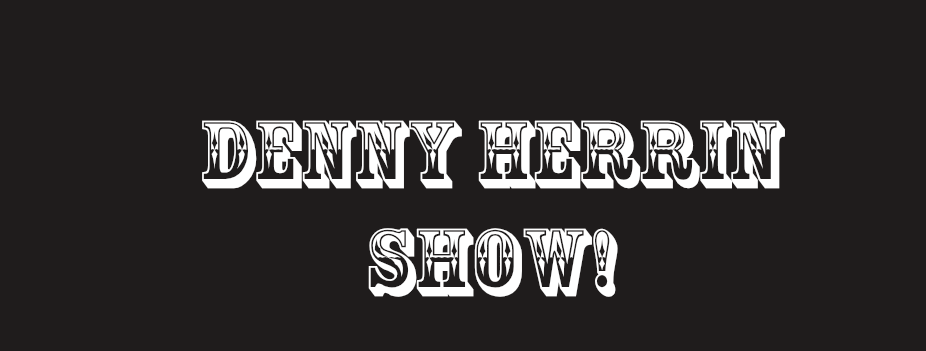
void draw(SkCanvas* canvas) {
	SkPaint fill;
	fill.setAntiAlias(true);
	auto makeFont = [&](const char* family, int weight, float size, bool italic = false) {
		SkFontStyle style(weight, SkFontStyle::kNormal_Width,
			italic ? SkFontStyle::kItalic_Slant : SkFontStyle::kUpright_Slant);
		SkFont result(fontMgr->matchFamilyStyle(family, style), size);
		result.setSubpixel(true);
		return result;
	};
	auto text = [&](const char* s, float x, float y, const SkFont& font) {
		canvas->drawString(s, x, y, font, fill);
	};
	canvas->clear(0xFF1F1C1C);
	auto font1 = makeFont("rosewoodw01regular", 400, 90);
	fill.setColor(0xFFFFFFFF);
	text("Denny Herrin", 199, 179, font1);
	text("Show!", 365, 287, font1);
}
